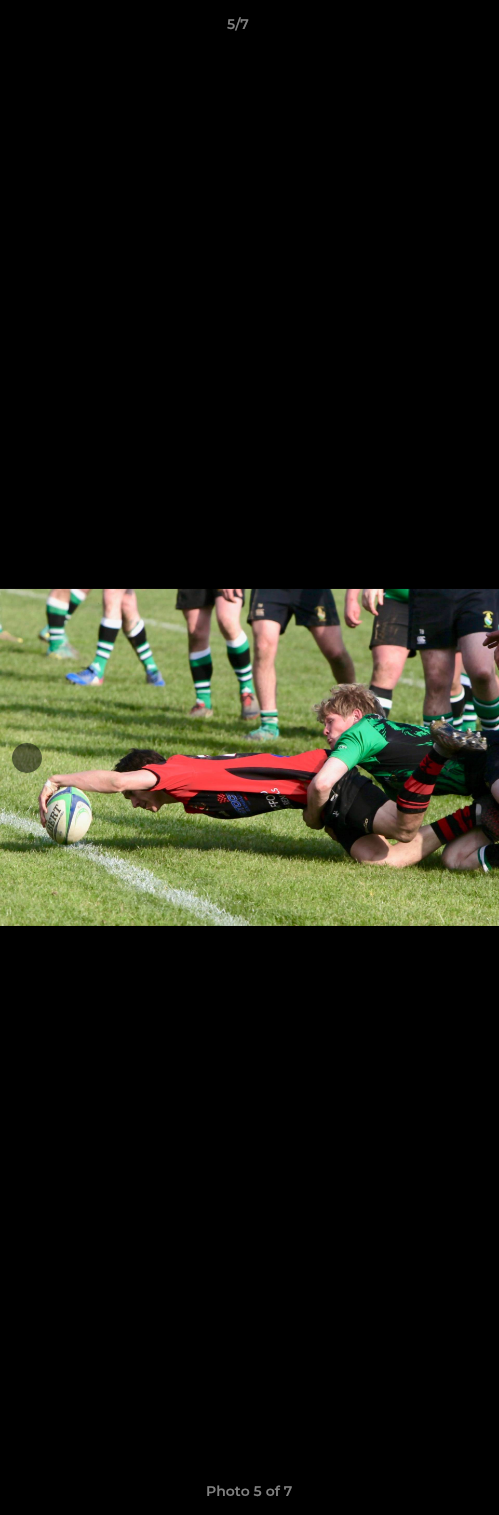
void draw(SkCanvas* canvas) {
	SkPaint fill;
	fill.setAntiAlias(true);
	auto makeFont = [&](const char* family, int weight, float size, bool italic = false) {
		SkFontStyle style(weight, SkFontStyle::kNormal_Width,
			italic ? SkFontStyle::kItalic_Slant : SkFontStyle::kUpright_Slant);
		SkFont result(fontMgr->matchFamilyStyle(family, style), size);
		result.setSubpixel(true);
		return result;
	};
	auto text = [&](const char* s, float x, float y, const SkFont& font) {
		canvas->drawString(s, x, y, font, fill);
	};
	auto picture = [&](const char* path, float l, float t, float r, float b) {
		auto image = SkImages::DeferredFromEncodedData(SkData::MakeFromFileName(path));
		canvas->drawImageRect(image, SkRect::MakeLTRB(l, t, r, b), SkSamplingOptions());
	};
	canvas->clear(0xFF000000);
	picture("image0.png", 0, 588, 499, 926);
	fill.setColor(0x80000000);
	canvas->drawCircle(27, 758, 15, fill);
	canvas->drawCircle(472, 758, 15, fill);
	auto font1 = makeFont("Montserrat", 600, 14);
	fill.setColor(0xFF808080);
	text("5/7", 227, 29, font1);
	text("Photo 5 of 7", 206, 1496, font1);
}
